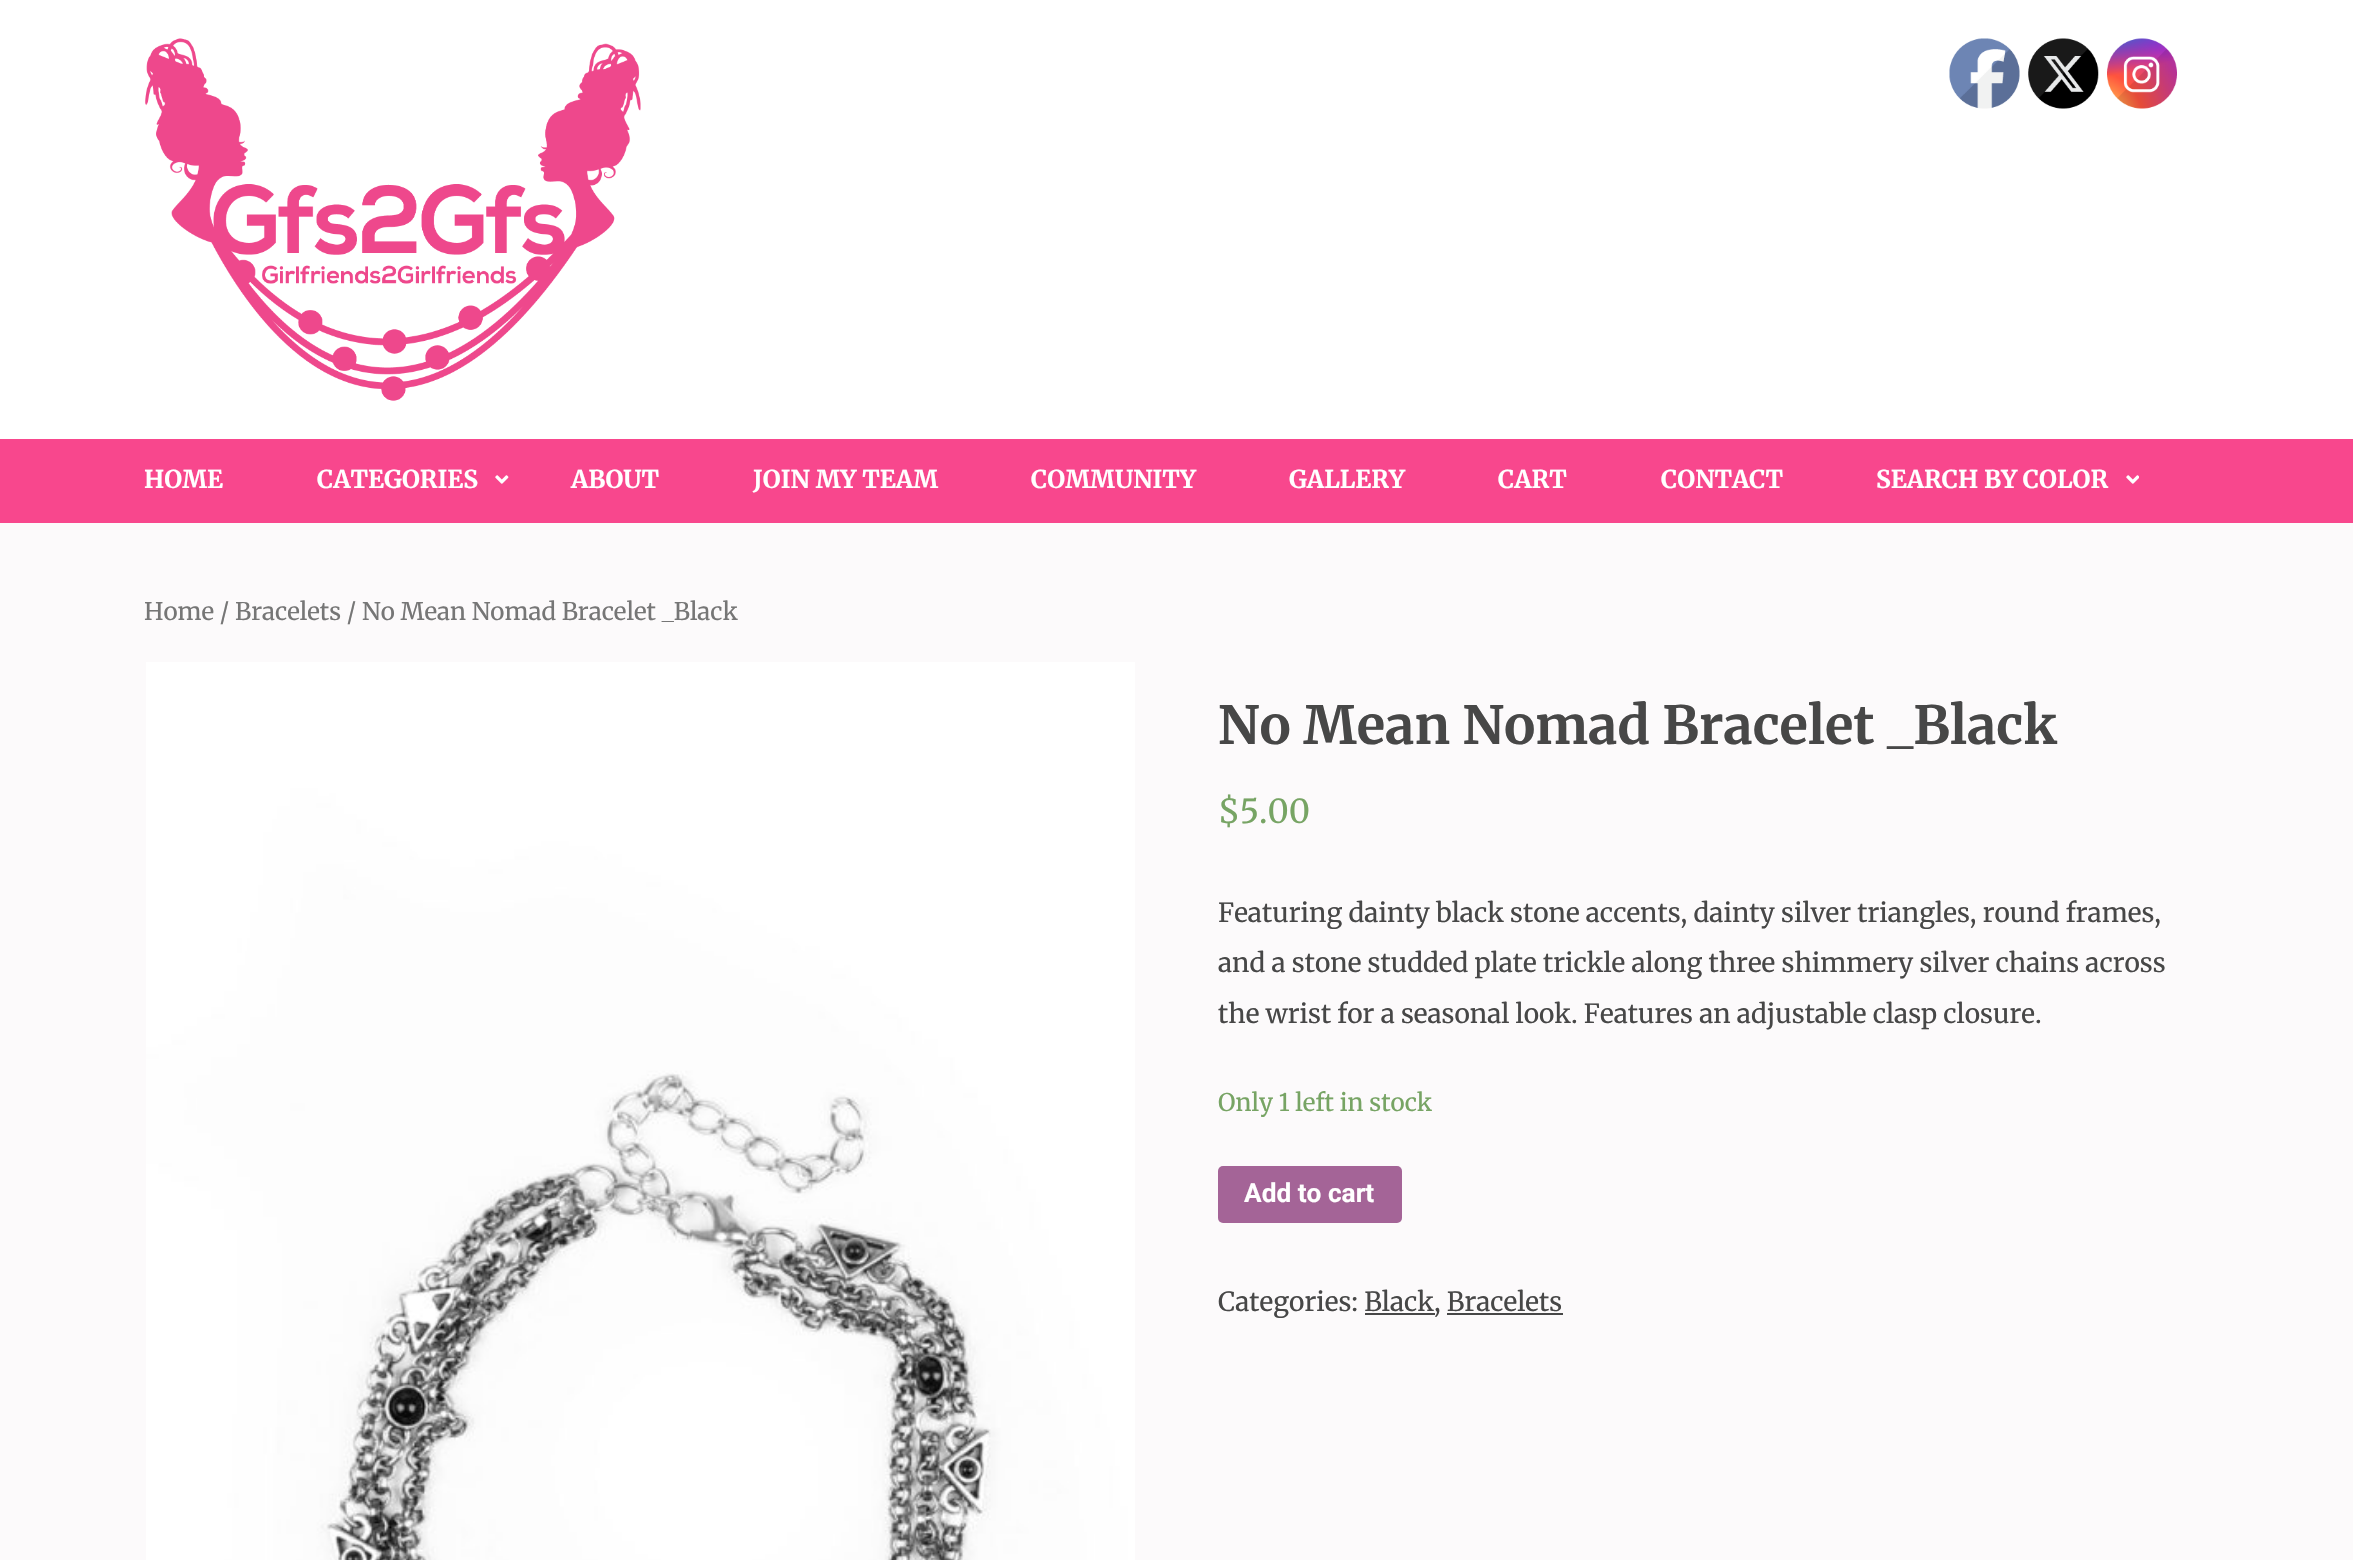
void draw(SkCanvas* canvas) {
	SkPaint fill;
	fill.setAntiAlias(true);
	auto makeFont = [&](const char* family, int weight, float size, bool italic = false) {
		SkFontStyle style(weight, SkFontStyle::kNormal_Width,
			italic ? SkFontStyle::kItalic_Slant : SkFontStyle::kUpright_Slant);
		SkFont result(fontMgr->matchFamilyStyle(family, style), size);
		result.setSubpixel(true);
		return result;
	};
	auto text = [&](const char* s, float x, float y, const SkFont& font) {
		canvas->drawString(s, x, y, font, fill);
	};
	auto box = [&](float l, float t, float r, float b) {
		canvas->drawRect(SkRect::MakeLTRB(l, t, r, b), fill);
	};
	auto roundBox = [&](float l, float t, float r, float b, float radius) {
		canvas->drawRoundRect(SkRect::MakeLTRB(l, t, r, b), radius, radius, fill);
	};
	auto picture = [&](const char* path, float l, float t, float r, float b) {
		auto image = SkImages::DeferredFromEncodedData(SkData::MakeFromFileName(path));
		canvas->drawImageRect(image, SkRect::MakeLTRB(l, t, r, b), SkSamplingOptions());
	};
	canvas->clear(0xFFFCFAFB);
	fill.setColor(0xFFFFFFFF);
	box(0, 0, 2353, 439);
	picture("image0.png", 1949, 38, 2020, 109);
	picture("image1.png", 2028, 38, 2099, 109);
	picture("image2.png", 2107, 38, 2177, 109);
	picture("image3.png", 145, 38, 641, 401);
	fill.setColor(0xFFF8478D);
	box(0, 439, 2353, 523);
	picture("image4.png", 495, 475, 509, 484);
	picture("image5.png", 2126, 475, 2139, 484);
	picture("image6.png", 146, 662, 1135, 1560);
	fill.setColor(0xFFA46497);
	roundBox(1218, 1166, 1402, 1223, 5);
	fill.setColor(0xFF474747);
	box(1365, 1313, 1435, 1315);
	box(1447, 1313, 1563, 1315);
	auto font1 = makeFont("Merriweather", 700, 24.5f);
	fill.setColor(0xFFFFFFFF);
	text("HOME", 144, 488, font1);
	text("CATEGORIES", 317, 488, font1);
	text("ABOUT", 571, 488, font1);
	text("JOIN MY TEAM", 753, 488, font1);
	text("COMMUNITY", 1031, 488, font1);
	text("GALLERY", 1289, 488, font1);
	text("CART", 1498, 488, font1);
	text("CONTACT", 1661, 488, font1);
	text("SEARCH BY COLOR", 1876, 488, font1);
	auto font2 = makeFont("Merriweather", 400, 24.15f);
	fill.setColor(0xFF767676);
	text("Home / Bracelets / No Mean Nomad Bracelet _Black", 144, 620, font2);
	auto font3 = makeFont("Merriweather", 700, 52.5f);
	fill.setColor(0xFF474747);
	text("No Mean Nomad Bracelet _Black", 1218, 744, font3);
	auto font4 = makeFont("Merriweather", 400, 33);
	fill.setColor(0xFF77A464);
	text("$5.00", 1218, 823, font4);
	auto font5 = makeFont("Merriweather", 400, 26.25f);
	fill.setColor(0xFF474747);
	text("Featuring dainty black stone accents, dainty silver triangles, round frames,", 1218, 922, font5);
	text("and a stone studded plate trickle along three shimmery silver chains across", 1218, 972, font5);
	text("the wrist for a seasonal look. Features an adjustable clasp closure.", 1218, 1023, font5);
	fill.setColor(0xFF77A464);
	text("Only 1 left in stock", 1218, 1111, font2);
	auto font6 = makeFont("Roboto", 700, 26.25f);
	fill.setColor(0xFFFFFFFF);
	text("Add to cart", 1244, 1202, font6);
	fill.setColor(0xFF474747);
	text("Categories: Black, Bracelets", 1218, 1311, font5);
}
